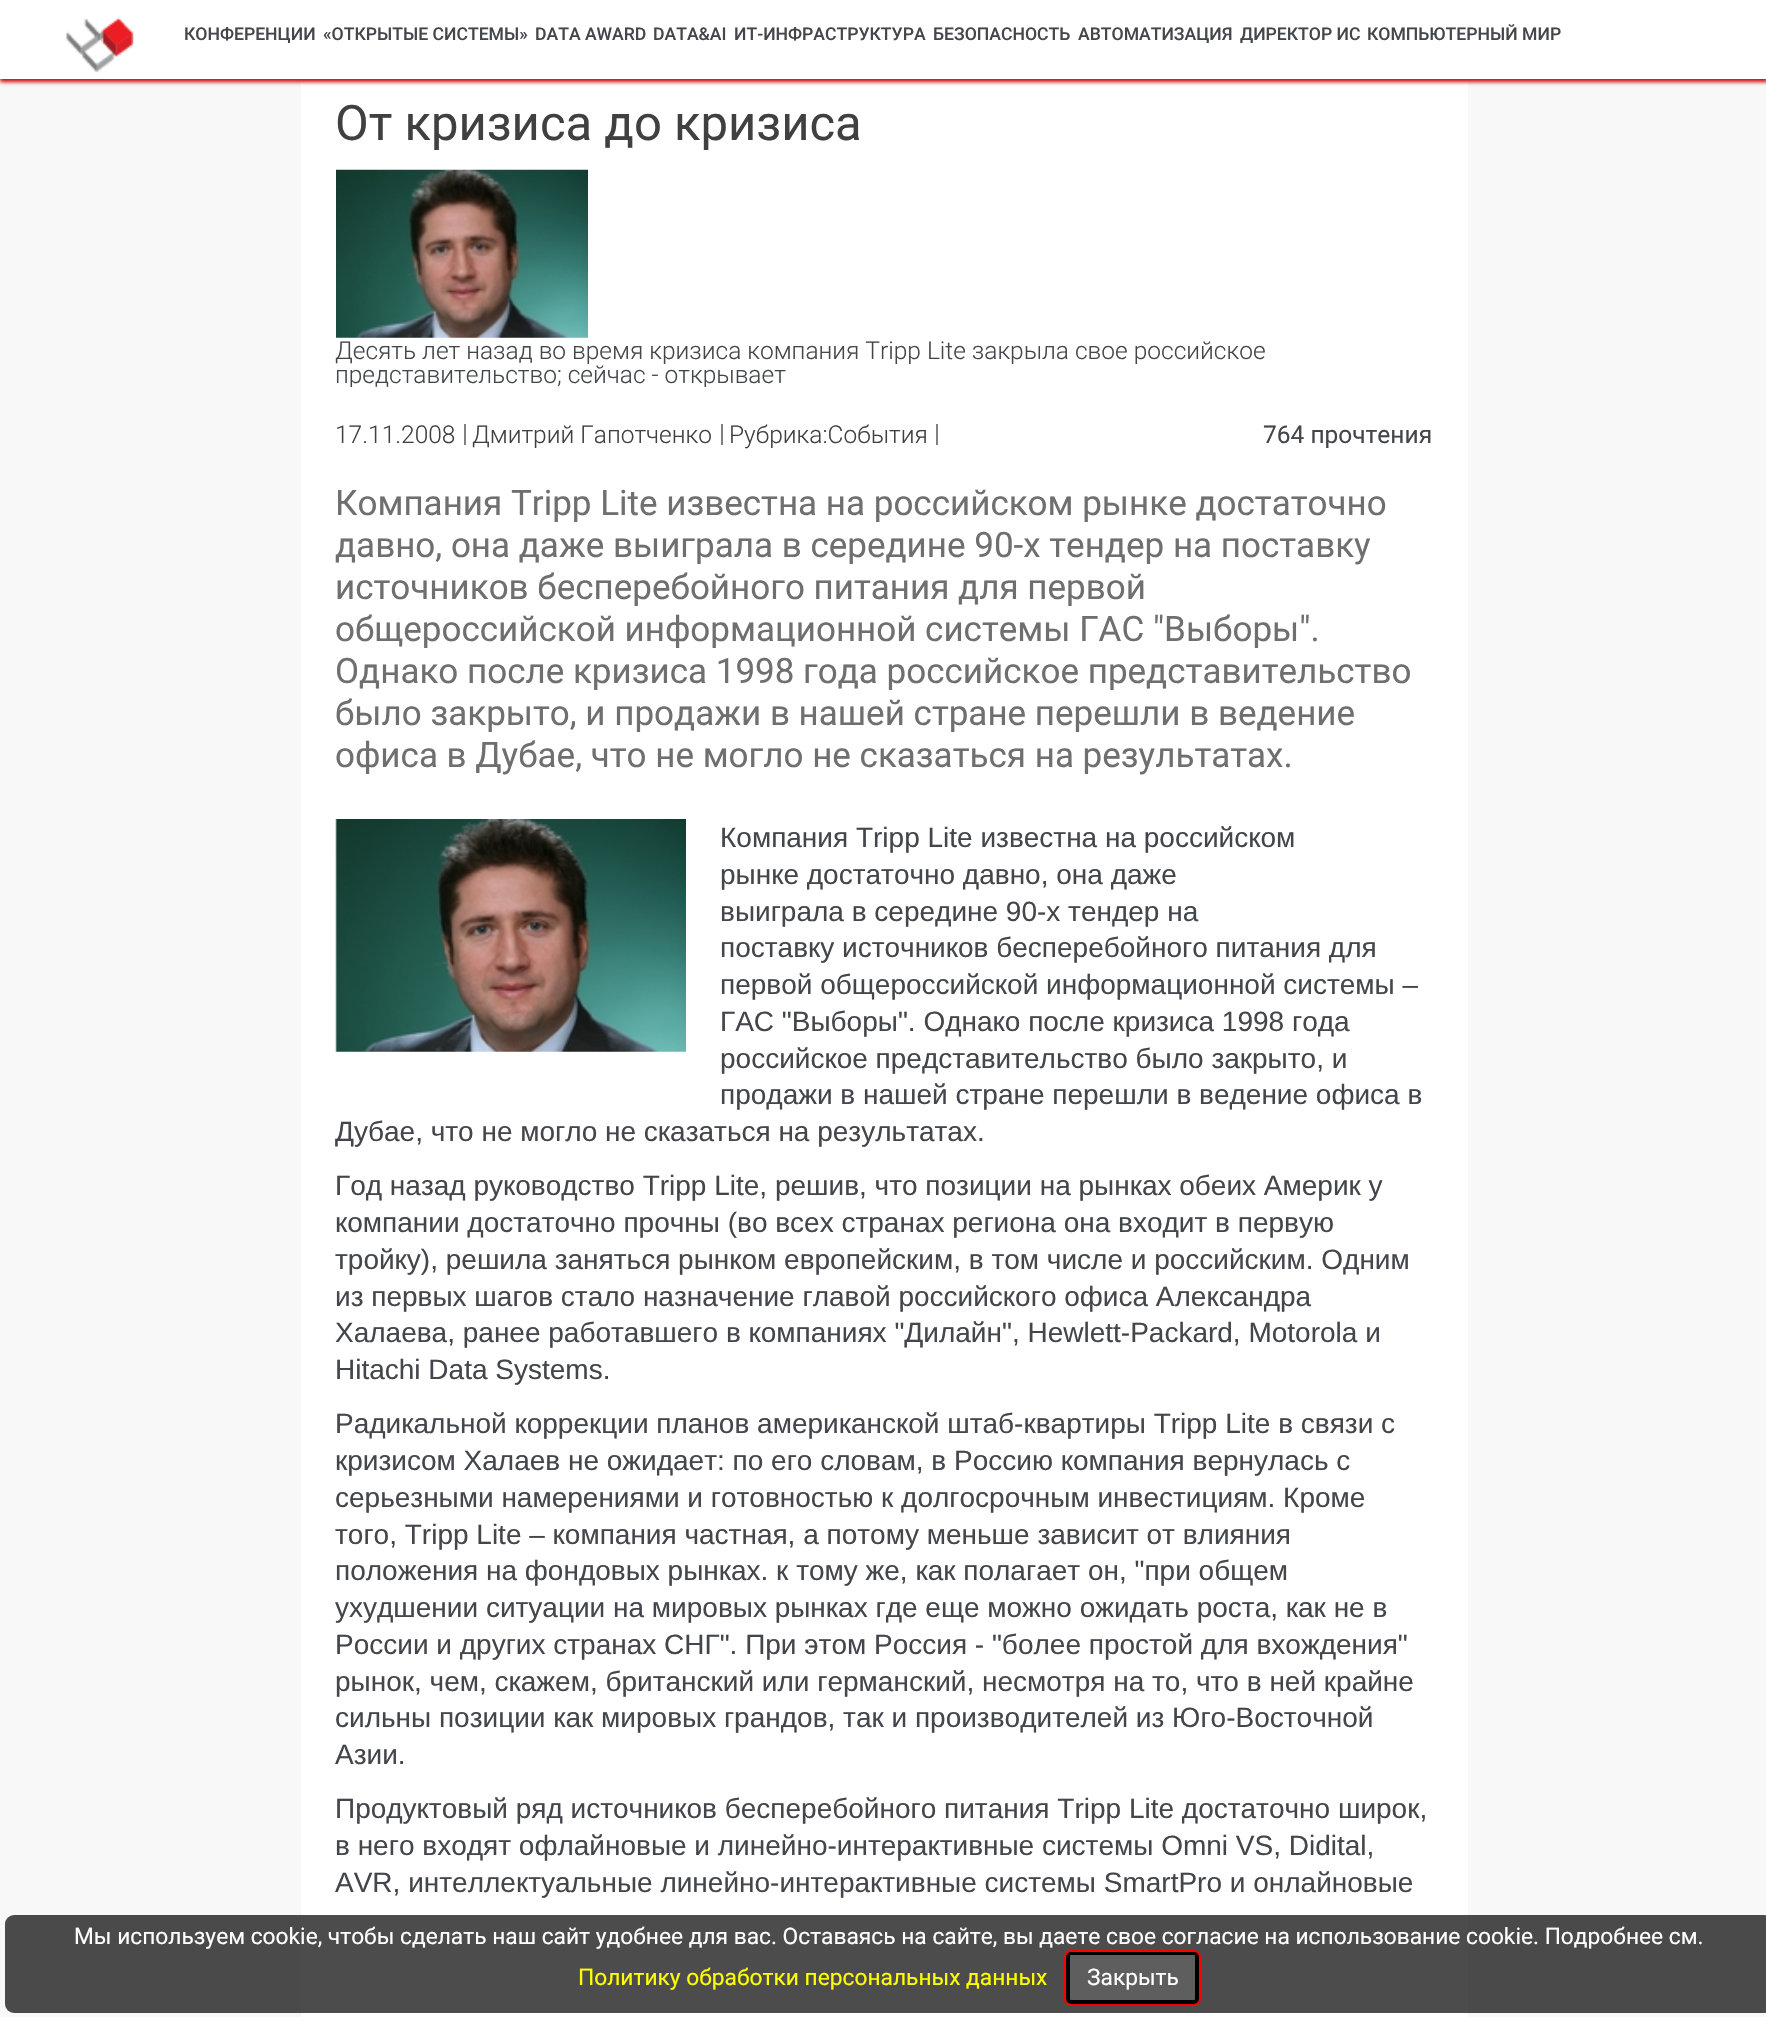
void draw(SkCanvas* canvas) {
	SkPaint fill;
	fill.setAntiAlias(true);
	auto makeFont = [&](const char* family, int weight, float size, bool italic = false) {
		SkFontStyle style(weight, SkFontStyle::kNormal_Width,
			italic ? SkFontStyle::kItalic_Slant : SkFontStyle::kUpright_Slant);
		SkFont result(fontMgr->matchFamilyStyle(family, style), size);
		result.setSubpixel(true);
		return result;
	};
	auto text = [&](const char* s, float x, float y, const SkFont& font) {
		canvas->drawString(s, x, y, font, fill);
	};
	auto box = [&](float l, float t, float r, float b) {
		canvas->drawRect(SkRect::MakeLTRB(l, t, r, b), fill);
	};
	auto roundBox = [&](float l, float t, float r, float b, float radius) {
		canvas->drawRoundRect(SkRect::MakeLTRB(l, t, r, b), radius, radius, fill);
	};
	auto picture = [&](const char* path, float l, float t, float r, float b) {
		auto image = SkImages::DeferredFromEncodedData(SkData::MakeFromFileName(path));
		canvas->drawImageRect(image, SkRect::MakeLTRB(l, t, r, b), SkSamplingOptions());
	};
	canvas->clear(0xFFF8F8F8);
	fill.setColor(0xFFFFFFFF);
	box(301, 79, 1468, 2017);
	fill.setColor(0xFFCD0400);
	fill.setMaskFilter(SkMaskFilter::MakeBlur(kNormal_SkBlurStyle, 2));
	canvas->drawRect(SkRect::MakeLTRB(0, 4, 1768, 82), fill);
	fill.setMaskFilter(nullptr);
	fill.setColor(0xFFFFFFFF);
	box(0, 0, 1766, 79);
	picture("image0.png", 66, 17, 134, 73);
	picture("image1.png", 336, 169, 588, 338);
	fill.setColor(0xFF808080);
	box(464, 424, 466, 445);
	box(721, 424, 723, 445);
	box(936, 424, 938, 445);
	picture("image2.png", 335, 819, 686, 1052);
	fill.setColor(0xB3000000);
	roundBox(5, 1915, 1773, 2013, 9);
	fill.setColor(0x1AFFFFFF);
	canvas->drawRoundRect(SkRect::MakeLTRB(1068, 1953, 1197, 2002), 3, 3, fill);
	fill.setStyle(SkPaint::kStroke_Style);
	fill.setStrokeWidth(4);
	fill.setColor(0xFF000000);
	canvas->drawRoundRect(SkRect::MakeLTRB(1068, 1953, 1197, 2002), 3, 3, fill);
	fill.setStrokeWidth(2);
	fill.setColor(0xFFFF0000);
	canvas->drawRoundRect(SkRect::MakeLTRB(1065, 1951, 1200, 2005), 6, 6, fill);
	auto font1 = makeFont("Roboto", 500, 17.6f);
	fill.setStyle(SkPaint::kFill_Style);
	fill.setColor(0xFF43464B);
	text("КОНФЕРЕНЦИИ", 184, 40, font1);
	text("«ОТКРЫТЫЕ СИСТЕМЫ»", 323, 40, font1);
	text("DATA AWARD", 535, 40, font1);
	text("DATA&AI", 653, 40, font1);
	text("ИТ-ИНФРАСТРУКТУРА", 734, 40, font1);
	text("БЕЗОПАСНОСТЬ", 933, 40, font1);
	text("АВТОМАТИЗАЦИЯ", 1078, 40, font1);
	text("ДИРЕКТОР ИС", 1240, 40, font1);
	text("КОМПЬЮТЕРНЫЙ МИР", 1367, 40, font1);
	auto font2 = makeFont("Roboto", 400, 49);
	fill.setColor(0xFF404040);
	text("От кризиса до кризиса", 335, 140, font2);
	auto font3 = makeFont("Roboto", 300, 24.5f);
	fill.setColor(0xFF43464B);
	text("Десять лет назад во время кризиса компания Tripp Lite закрыла свое российское", 335, 359, font3);
	canvas->save();
	canvas->clipRect(SkRect::MakeLTRB(336, 170, 1433, 387));
	text("представительство; сейчас - открывает", 335, 383, font3);
	canvas->restore();
	fill.setColor(0xFF404040);
	text("17.11.2008", 335, 443, font3);
	text("Дмитрий Гапотченко", 472, 443, font3);
	text("Рубрика:События", 729, 443, font3);
	auto font4 = makeFont("Roboto", 400, 24.5f);
	fill.setColor(0xFF43464B);
	text("764 прочтения", 1263, 443, font4);
	auto font5 = makeFont("Roboto", 400, 35);
	fill.setColor(0xFF6F6F6F);
	text("Компания Tripp Lite известна на российском рынке достаточно", 335, 515, font5);
	text("давно, она даже выиграла в середине 90-х тендер на поставку", 335, 557, font5);
	text("источников бесперебойного питания для первой", 335, 599, font5);
	text("общероссийской информационной системы ГАС \"Выборы\".", 335, 641, font5);
	text("Однако после кризиса 1998 года российское представительство", 335, 683, font5);
	text("было закрыто, и продажи в нашей стране перешли в ведение", 335, 725, font5);
	text("офиса в Дубае, что не могло не сказаться на результатах.", 335, 767, font5);
	auto font6 = makeFont("Liberation Sans", 400, 28);
	fill.setColor(0xFF43464B);
	text("Компания Tripp Lite известна на российском", 720, 847, font6);
	text("рынке достаточно давно, она даже", 720, 884, font6);
	text("выиграла в середине 90-х тендер на", 720, 921, font6);
	text("поставку источников бесперебойного питания для", 720, 957, font6);
	text("первой общероссийской информационной системы –", 720, 994, font6);
	text("ГАС \"Выборы\". Однако после кризиса 1998 года", 720, 1031, font6);
	text("российское представительство было закрыто, и", 720, 1068, font6);
	text("продажи в нашей стране перешли в ведение офиса в", 720, 1104, font6);
	text("Дубае, что не могло не сказаться на результатах.", 335, 1141, font6);
	text("Год назад руководство Tripp Lite, решив, что позиции на рынках обеих Америк у", 335, 1195, font6);
	text("компании достаточно прочны (во всех странах региона она входит в первую", 335, 1232, font6);
	text("тройку), решила заняться рынком европейским, в том числе и российским. Одним", 335, 1269, font6);
	text("из первых шагов стало назначение главой российского офиса Александра", 335, 1306, font6);
	text("Халаева, ранее работавшего в компаниях \"Дилайн\", Hewlett-Packard, Motorola и", 335, 1342, font6);
	text("Hitachi Data Systems.", 335, 1379, font6);
	text("Радикальной коррекции планов американской штаб-квартиры Tripp Lite в связи с", 335, 1433, font6);
	text("кризисом Халаев не ожидает: по его словам, в Россию компания вернулась с", 335, 1470, font6);
	text("серьезными намерениями и готовностью к долгосрочным инвестициям. Кроме", 335, 1507, font6);
	text("того, Tripp Lite – компания частная, а потому меньше зависит от влияния", 335, 1544, font6);
	text("положения на фондовых рынках. к тому же, как полагает он, \"при общем", 335, 1580, font6);
	text("ухудшении ситуации на мировых рынках где еще можно ожидать роста, как не в", 335, 1617, font6);
	text("России и других странах СНГ\". При этом Россия - \"более простой для вхождения\"", 335, 1654, font6);
	text("рынок, чем, скажем, британский или германский, несмотря на то, что в ней крайне", 335, 1691, font6);
	text("сильны позиции как мировых грандов, так и производителей из Юго-Восточной", 335, 1727, font6);
	text("Азии.", 335, 1764, font6);
	text("Продуктовый ряд источников бесперебойного питания Tripp Lite достаточно широк,", 335, 1818, font6);
	text("в него входят офлайновые и линейно-интерактивные системы Omni VS, Didital,", 335, 1855, font6);
	text("AVR, интеллектуальные линейно-интерактивные системы SmartPro и онлайновые", 335, 1892, font6);
	auto font7 = makeFont("Roboto", 400, 22.75f);
	fill.setColor(0xFFFFFFFF);
	text("Мы используем cookie, чтобы сделать наш сайт удобнее для вас. Оставаясь на сайте, вы даете свое согласие на использование cookie. Подробнее см.", 74, 1944, font7);
	fill.setColor(0xFFFFFF00);
	text("Политику обработки персональных данных", 578, 1985, font7);
	fill.setColor(0xFFFFFFFF);
	text("Закрыть", 1087, 1985, font7);
}
